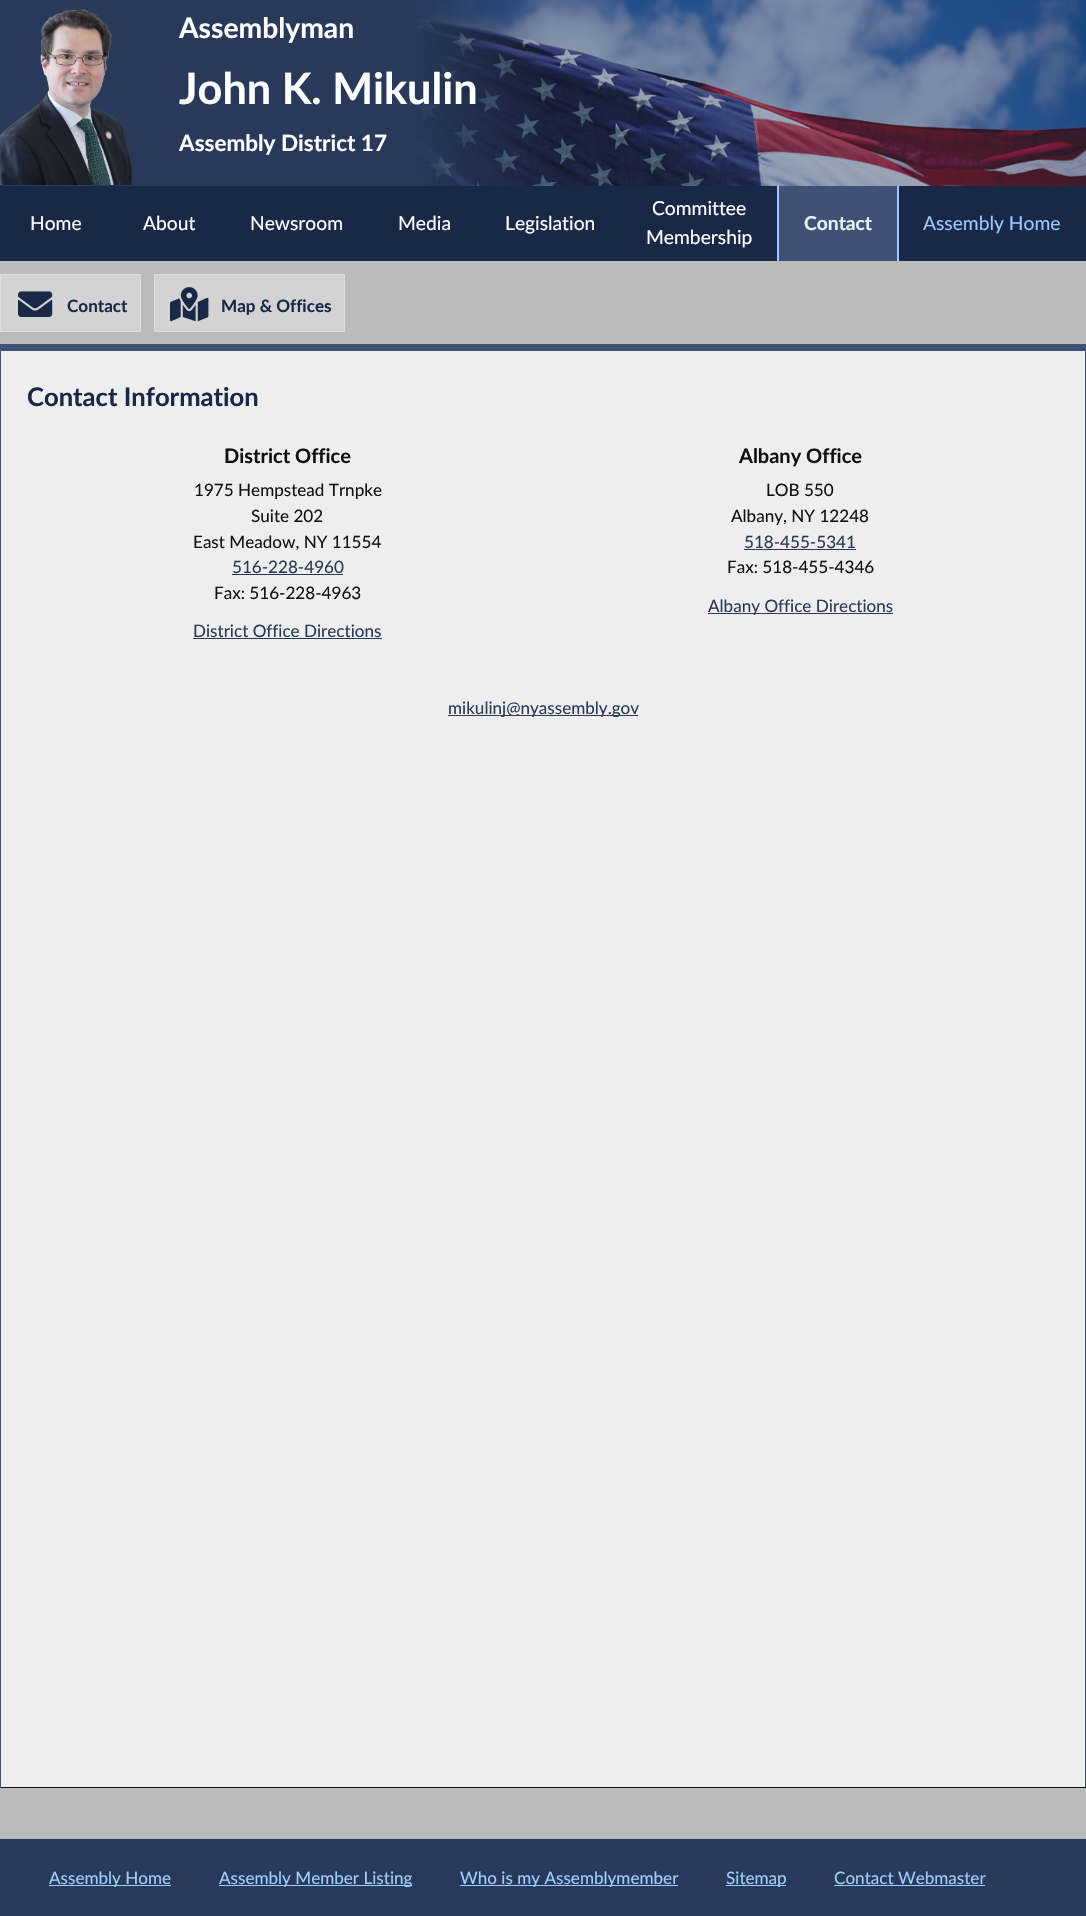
void draw(SkCanvas* canvas) {
	SkPaint fill;
	fill.setAntiAlias(true);
	auto makeFont = [&](const char* family, int weight, float size, bool italic = false) {
		SkFontStyle style(weight, SkFontStyle::kNormal_Width,
			italic ? SkFontStyle::kItalic_Slant : SkFontStyle::kUpright_Slant);
		SkFont result(fontMgr->matchFamilyStyle(family, style), size);
		result.setSubpixel(true);
		return result;
	};
	auto text = [&](const char* s, float x, float y, const SkFont& font) {
		canvas->drawString(s, x, y, font, fill);
	};
	auto box = [&](float l, float t, float r, float b) {
		canvas->drawRect(SkRect::MakeLTRB(l, t, r, b), fill);
	};
	auto picture = [&](const char* path, float l, float t, float r, float b) {
		auto image = SkImages::DeferredFromEncodedData(SkData::MakeFromFileName(path));
		canvas->drawImageRect(image, SkRect::MakeLTRB(l, t, r, b), SkSamplingOptions());
	};
	canvas->clear(0xFFBBBBBB);
	fill.setColor(0xFF29395A);
	box(0, 0, 1086, 186);
	picture("image0.png", 416, 0, 1086, 186);
	picture("image1.png", 0, 9, 133, 185);
	fill.setColor(0xFF192847);
	box(0, 186, 1086, 261);
	fill.setColor(0xFF405175);
	box(779, 186, 897, 261);
	fill.setColor(0xFF9BC9FF);
	box(897, 186, 899, 261);
	box(777, 186, 779, 261);
	fill.setColor(0xFFD3D3D3);
	canvas->drawRect(SkRect::MakeLTRB(0.5f, 274.5f, 140.5f, 331.5f), fill);
	fill.setStyle(SkPaint::kStroke_Style);
	fill.setStrokeWidth(1);
	fill.setColor(0xFFDDDDDD);
	canvas->drawRect(SkRect::MakeLTRB(0.5f, 274.5f, 140.5f, 331.5f), fill);
	picture("image2.png", 18, 291, 53, 317);
	fill.setStyle(SkPaint::kFill_Style);
	fill.setColor(0xFFD3D3D3);
	canvas->drawRect(SkRect::MakeLTRB(154.5f, 274.5f, 344.5f, 331.5f), fill);
	fill.setStyle(SkPaint::kStroke_Style);
	fill.setColor(0xFFDDDDDD);
	canvas->drawRect(SkRect::MakeLTRB(154.5f, 274.5f, 344.5f, 331.5f), fill);
	picture("image3.png", 170, 287, 209, 322);
	fill.setStyle(SkPaint::kFill_Style);
	fill.setColor(0xFFEEEEEE);
	box(1, 351, 1085, 1787);
	fill.setColor(0xFF405175);
	box(0, 344, 1086, 351);
	box(1085, 344, 1086, 1788);
	fill.setColor(0xFF111111);
	box(0, 1787, 1086, 1788);
	fill.setColor(0xFF405175);
	box(0, 344, 1, 1788);
	fill.setColor(0xFF29395A);
	box(232, 574, 343, 575);
	box(193, 638, 382, 639);
	box(744, 549, 856, 550);
	box(708, 613, 893, 614);
	box(448, 715, 638, 716);
	box(0, 1839, 1086, 1916);
	fill.setColor(0xFF9CD0FF);
	box(49, 1885, 171, 1886);
	box(219, 1885, 412, 1886);
	box(460, 1885, 678, 1886);
	box(726, 1885, 786, 1886);
	box(834, 1885, 985, 1886);
	auto font1 = makeFont("Lato", 700, 28.25f);
	fill.setColor(0xFFFFFFFF);
	text("Assemblyman", 179, 38, font1);
	auto font2 = makeFont("Lato", 700, 43.25f);
	text("John K. Mikulin", 179, 104, font2);
	auto font3 = makeFont("Lato", 700, 22.5f);
	text("Assembly District 17", 179, 151, font3);
	auto font4 = makeFont("Lato", 400, 19.25f);
	text("Home", 30, 230, font4);
	text("About", 143, 230, font4);
	text("Newsroom", 250, 230, font4);
	text("Media", 398, 230, font4);
	text("Legislation", 505, 230, font4);
	text("Committee", 652, 215, font4);
	text("Membership", 646, 244, font4);
	auto font5 = makeFont("Lato", 700, 19.25f);
	fill.setColor(0xFFE4F5FF);
	text("Contact", 804, 230, font5);
	fill.setColor(0xFF9BC9FF);
	text("Assembly Home", 923, 230, font4);
	auto font6 = makeFont("Lato", 700, 17.1f);
	fill.setColor(0xFF192847);
	text("Contact", 67, 312, font6);
	text("Map & Offices", 221, 312, font6);
	auto font7 = makeFont("Lato", 700, 25.6f);
	text("Contact Information", 27, 406, font7);
	auto font8 = makeFont("Lato", 700, 20);
	fill.setColor(0xFF111111);
	text("District Office", 224, 463, font8);
	auto font9 = makeFont("Lato", 400, 17.1f);
	text("1975 Hempstead Trnpke", 194, 496, font9);
	text("Suite 202", 251, 522, font9);
	text("East Meadow, NY 11554", 193, 548, font9);
	fill.setColor(0xFF29395A);
	text("516-228-4960", 232, 573, font9);
	fill.setColor(0xFF111111);
	text("Fax: 516-228-4963", 214, 599, font9);
	fill.setColor(0xFF29395A);
	text("District Office Directions", 193, 637, font9);
	fill.setColor(0xFF111111);
	text("Albany Office", 739, 463, font8);
	text("LOB 550", 766, 496, font9);
	text("Albany, NY 12248", 731, 522, font9);
	fill.setColor(0xFF29395A);
	text("518-455-5341", 744, 548, font9);
	fill.setColor(0xFF111111);
	text("Fax: 518-455-4346", 727, 573, font9);
	fill.setColor(0xFF29395A);
	text("Albany Office Directions", 708, 612, font9);
	text("mikulinj@nyassembly.gov", 448, 714, font9);
	fill.setColor(0xFF9CD0FF);
	text("Assembly Home", 49, 1884, font9);
	text("Assembly Member Listing", 219, 1884, font9);
	text("Who is my Assemblymember", 460, 1884, font9);
	text("Sitemap", 726, 1884, font9);
	text("Contact Webmaster", 834, 1884, font9);
}
